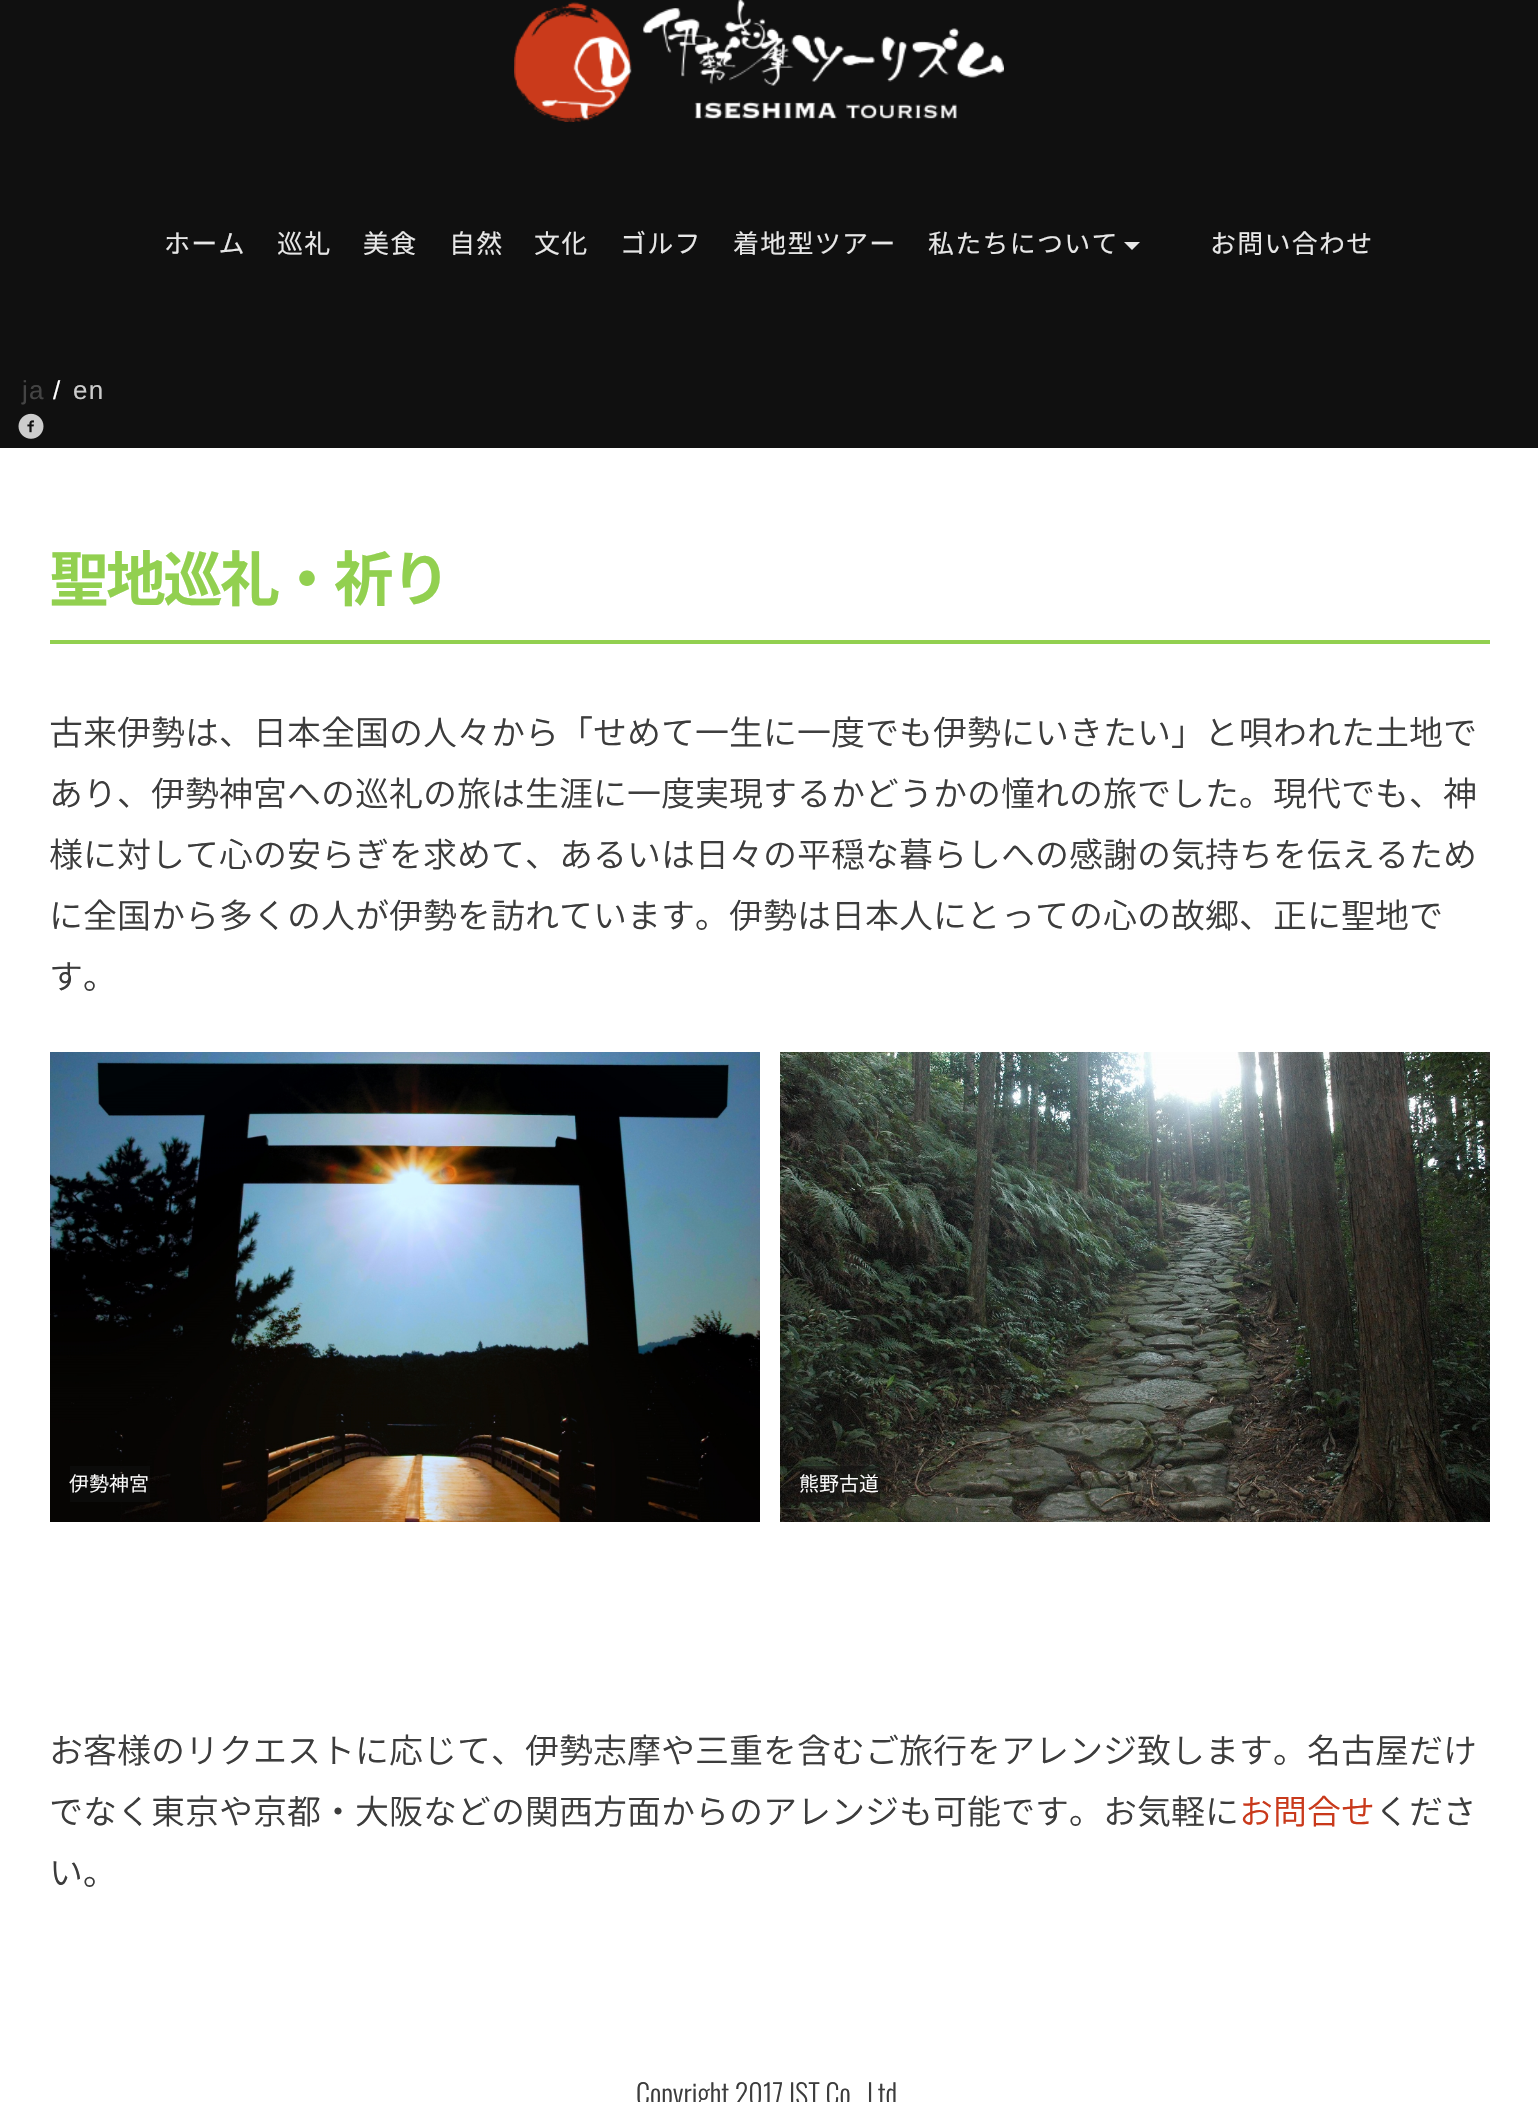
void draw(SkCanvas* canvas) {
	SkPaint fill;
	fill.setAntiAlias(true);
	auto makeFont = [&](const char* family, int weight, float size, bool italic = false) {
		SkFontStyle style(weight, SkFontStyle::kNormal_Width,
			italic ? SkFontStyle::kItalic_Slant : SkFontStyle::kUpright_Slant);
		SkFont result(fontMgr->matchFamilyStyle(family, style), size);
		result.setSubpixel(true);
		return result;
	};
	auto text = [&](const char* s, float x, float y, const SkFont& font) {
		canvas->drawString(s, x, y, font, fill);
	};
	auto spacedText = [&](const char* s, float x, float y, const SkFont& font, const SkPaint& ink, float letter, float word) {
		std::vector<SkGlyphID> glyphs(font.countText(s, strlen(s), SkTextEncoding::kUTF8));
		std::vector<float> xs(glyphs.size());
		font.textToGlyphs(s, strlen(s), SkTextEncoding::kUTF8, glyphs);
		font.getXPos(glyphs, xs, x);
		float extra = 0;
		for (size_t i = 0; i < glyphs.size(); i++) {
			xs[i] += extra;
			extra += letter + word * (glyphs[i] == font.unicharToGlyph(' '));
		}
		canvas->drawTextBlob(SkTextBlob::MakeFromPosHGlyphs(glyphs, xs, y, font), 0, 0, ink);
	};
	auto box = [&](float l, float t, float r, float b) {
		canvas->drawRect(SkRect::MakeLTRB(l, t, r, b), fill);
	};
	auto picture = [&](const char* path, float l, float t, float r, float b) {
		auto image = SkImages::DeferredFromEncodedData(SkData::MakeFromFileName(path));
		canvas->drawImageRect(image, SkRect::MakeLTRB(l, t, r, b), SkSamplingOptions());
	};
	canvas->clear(0xFFFFFFFF);
	fill.setColor(0xFF101010);
	box(0, 0, 1538, 448);
	picture("image0.png", 514, 0, 1004, 122);
	fill.setColor(0xFFE7E7E7);
	canvas->drawPath(SkPathBuilder().moveTo(1124, 242).lineTo(1140, 242).lineTo(1132, 250).close().detach(), fill);
	picture("image1.png", 18, 413, 44, 439);
	fill.setColor(0xFF92D050);
	box(50, 640, 1490, 644);
	picture("image2.png", 50, 1052, 760, 1522);
	fill.setColor(0x80101010);
	box(70, 1466, 150, 1502);
	picture("image3.png", 780, 1052, 1490, 1522);
	box(800, 1466, 880, 1502);
	auto font1 = makeFont("Noto Sans JP", 400, 26);
	fill.setColor(0xFFE7E7E7);
	spacedText("ホーム", 164, 253, font1, fill, 1.25f, 0);
	spacedText("巡礼", 277, 253, font1, fill, 1.25f, 0);
	spacedText("美食", 363, 253, font1, fill, 1.25f, 0);
	spacedText("自然", 449, 253, font1, fill, 1.25f, 0);
	spacedText("文化", 534, 253, font1, fill, 1.25f, 0);
	spacedText("ゴルフ", 620, 253, font1, fill, 1.25f, 0);
	spacedText("着地型ツアー", 733, 253, font1, fill, 1.25f, 0);
	spacedText("私たちについて", 928, 253, font1, fill, 1.25f, 0);
	spacedText("お問い合わせ", 1210, 253, font1, fill, 1.25f, 0);
	auto font2 = makeFont("Liberation Sans", 400, 26);
	fill.setColor(0xFF444444);
	spacedText("ja", 22, 399, font2, fill, 1.25f, 0);
	fill.setColor(0xFFFFFFFF);
	spacedText("/", 53, 399, font2, fill, 1.25f, 0);
	fill.setColor(0xFFCCCCCC);
	spacedText("en", 73, 399, font2, fill, 1.25f, 0);
	auto font3 = makeFont("Noto Sans JP", 700, 60);
	fill.setColor(0xFF92D050);
	spacedText("聖地巡礼・祈り", 49, 601, font3, fill, -3, 0);
	auto font4 = makeFont("Noto Sans JP", 300, 34);
	fill.setColor(0xFF3C3C3C);
	text("古来伊勢は、日本全国の人々から「せめて一生に一度でも伊勢にいきたい」と唄われた土地で", 49, 745, font4);
	text("あり、伊勢神宮への巡礼の旅は生涯に一度実現するかどうかの憧れの旅でした。現代でも、神", 49, 806, font4);
	text("様に対して心の安らぎを求めて、あるいは日々の平穏な暮らしへの感謝の気持ちを伝えるため", 49, 867, font4);
	text("に全国から多くの人が伊勢を訪れています。伊勢は日本人にとっての心の故郷、正に聖地で", 49, 928, font4);
	text("す。", 49, 989, font4);
	auto font5 = makeFont("Noto Sans JP", 300, 20);
	fill.setColor(0xFFFFFFFF);
	text("伊勢神宮", 69, 1491, font5);
	text("熊野古道", 799, 1491, font5);
	fill.setColor(0xFF3C3C3C);
	text("お客様のリクエストに応じて、伊勢志摩や三重を含むご旅行をアレンジ致します。名古屋だけ", 49, 1763, font4);
	text("でなく東京や京都・大阪などの関西方面からのアレンジも可能です。お気軽に", 49, 1824, font4);
	fill.setColor(0xFFC9391B);
	text("お問合せ", 1239, 1824, font4);
	fill.setColor(0xFF3C3C3C);
	text("くださ", 1375, 1824, font4);
	text("い。", 49, 1885, font4);
	auto font6 = makeFont("Oswald", 300, 28);
	text("Copyright 2017 IST Co", 636, 2105, font6);
	text("Ltd", 867, 2105, font6);
}
